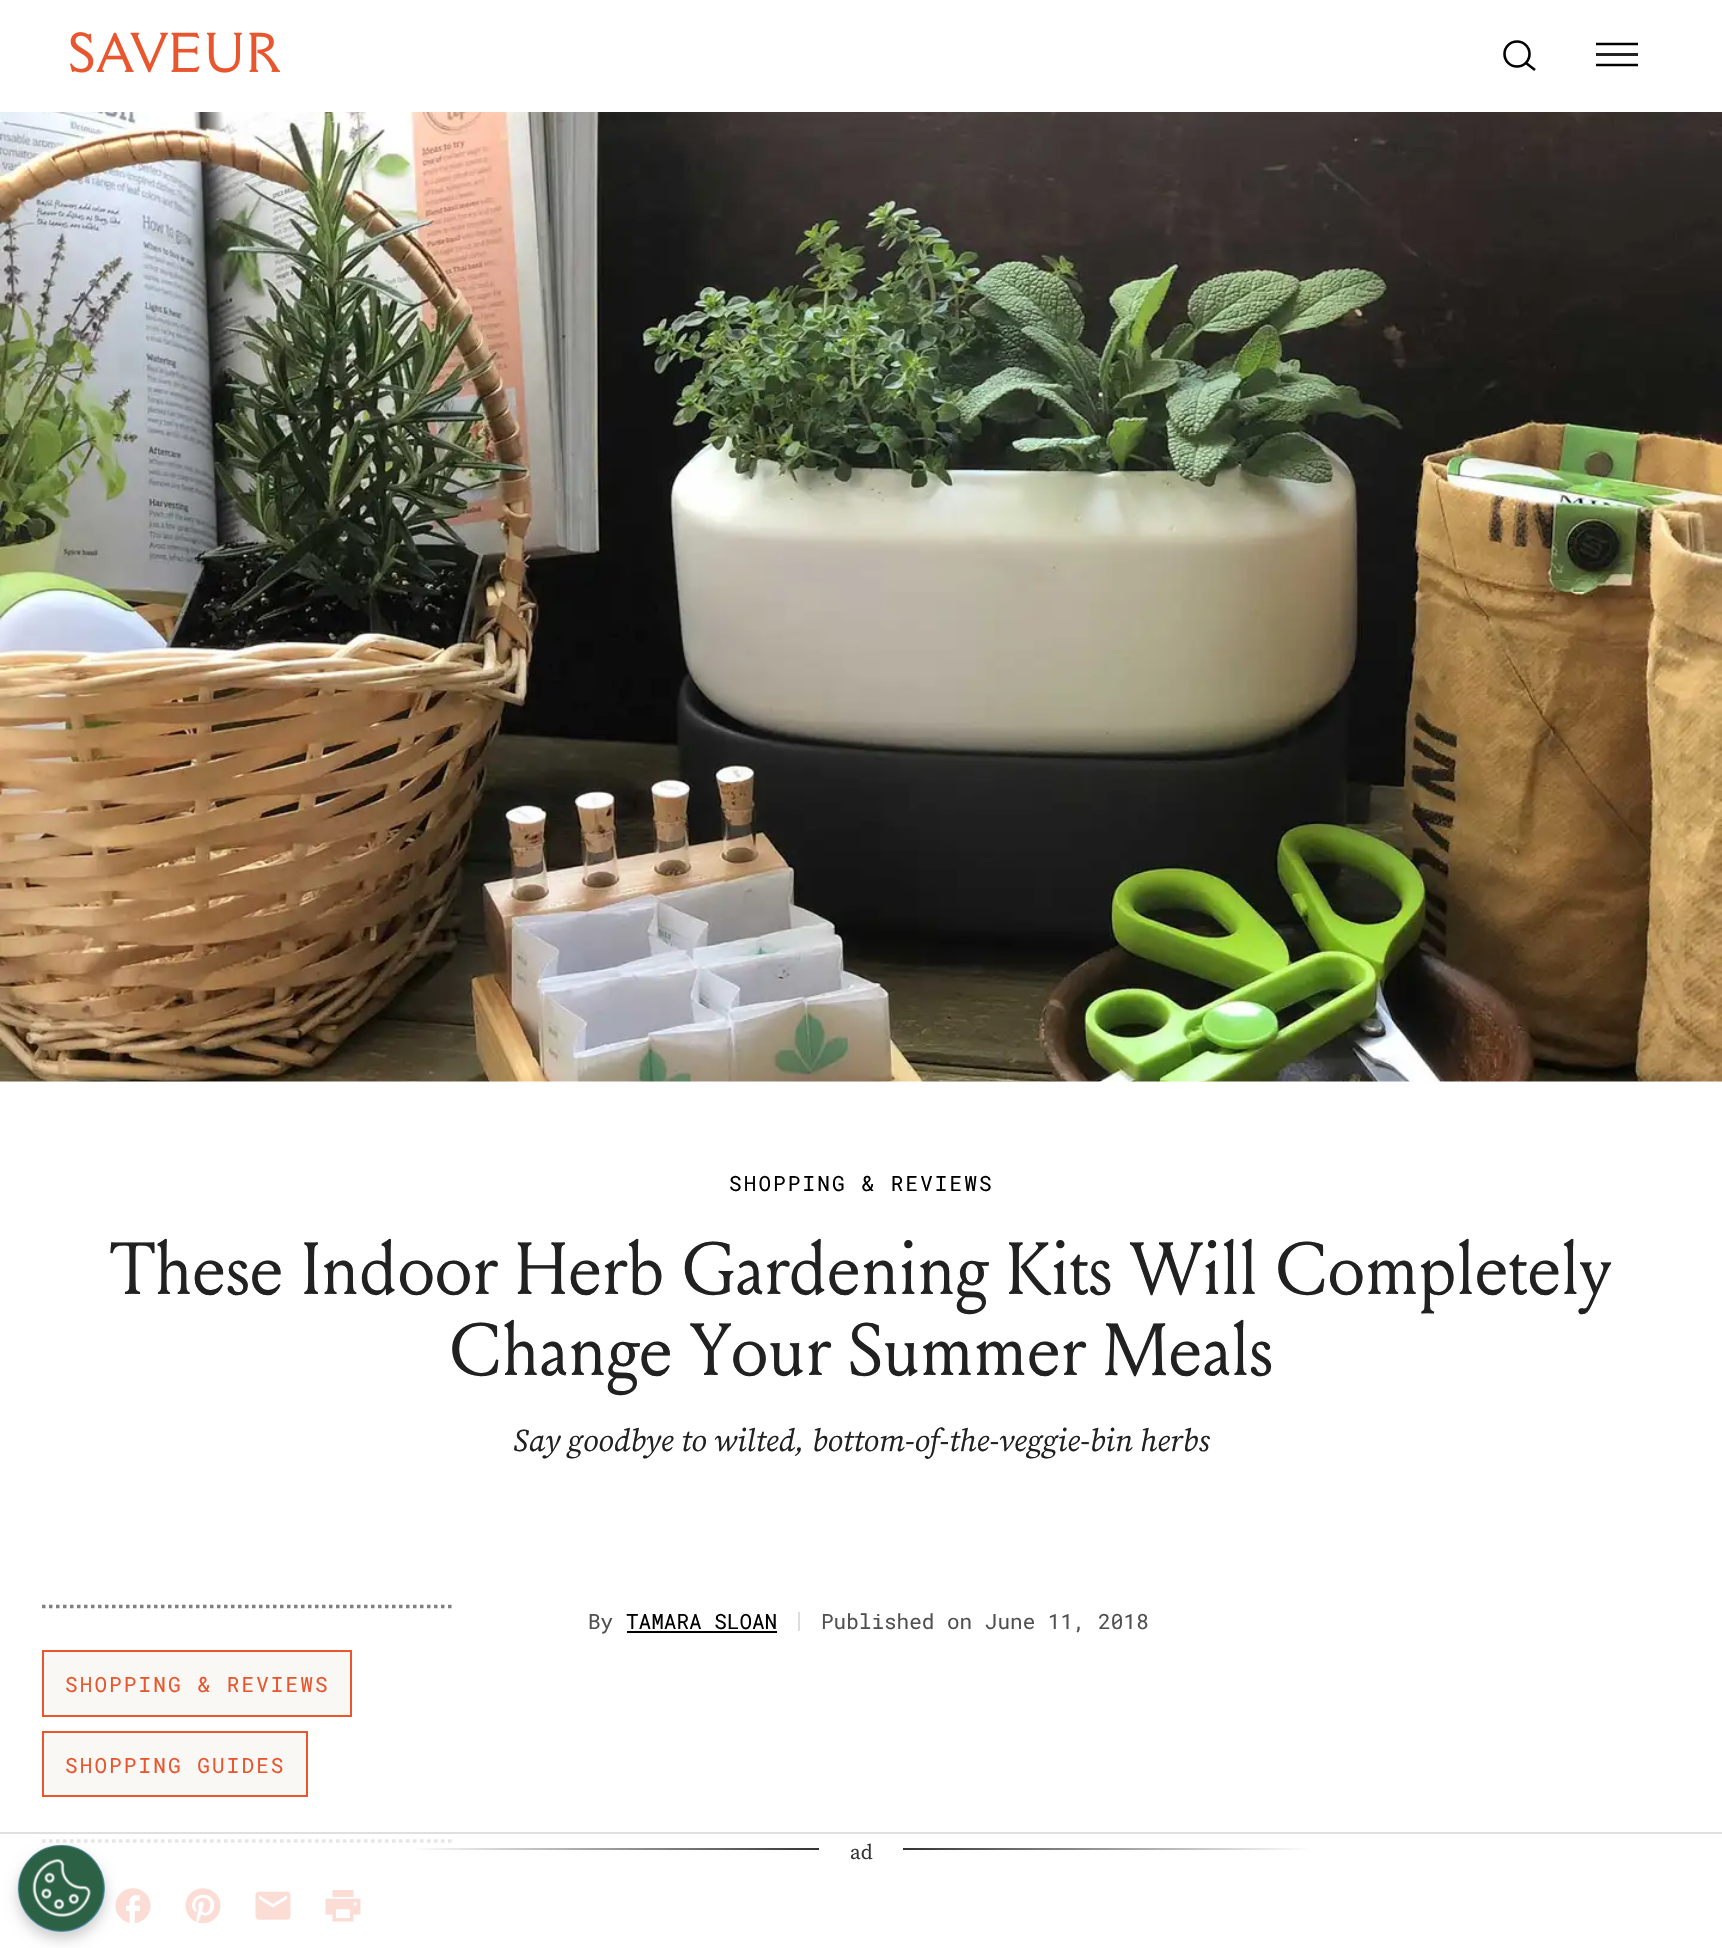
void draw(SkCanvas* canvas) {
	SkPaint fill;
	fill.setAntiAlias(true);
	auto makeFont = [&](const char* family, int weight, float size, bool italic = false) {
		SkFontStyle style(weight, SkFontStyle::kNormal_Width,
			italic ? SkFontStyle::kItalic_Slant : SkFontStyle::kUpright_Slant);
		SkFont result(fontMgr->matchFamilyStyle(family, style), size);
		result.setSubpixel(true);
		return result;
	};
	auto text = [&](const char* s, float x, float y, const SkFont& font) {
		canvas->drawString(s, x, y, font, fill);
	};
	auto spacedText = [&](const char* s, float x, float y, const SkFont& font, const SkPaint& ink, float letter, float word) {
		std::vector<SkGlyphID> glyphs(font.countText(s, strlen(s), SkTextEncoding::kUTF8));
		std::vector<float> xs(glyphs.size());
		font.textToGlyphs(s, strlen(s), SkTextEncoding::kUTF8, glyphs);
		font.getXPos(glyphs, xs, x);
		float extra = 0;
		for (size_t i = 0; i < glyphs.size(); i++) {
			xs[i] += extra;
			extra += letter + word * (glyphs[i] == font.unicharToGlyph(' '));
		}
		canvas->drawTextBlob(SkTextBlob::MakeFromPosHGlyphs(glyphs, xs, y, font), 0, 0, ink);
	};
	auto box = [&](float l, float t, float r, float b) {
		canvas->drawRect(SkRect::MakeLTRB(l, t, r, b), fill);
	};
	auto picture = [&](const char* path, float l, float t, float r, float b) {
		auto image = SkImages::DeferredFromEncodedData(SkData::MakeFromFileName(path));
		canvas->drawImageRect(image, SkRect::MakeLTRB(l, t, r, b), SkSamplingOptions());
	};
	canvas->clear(0xFFFFFFFF);
	picture("image0.png", 70, 32, 280, 73);
	fill.setStyle(SkPaint::kStroke_Style);
	fill.setStrokeWidth(2.6f);
	fill.setColor(0xFF000000);
	canvas->drawCircle(1517, 54, 12.5f, fill);
	canvas->drawPath(SkPathBuilder().moveTo(1526, 63).lineTo(1535, 70).detach(), fill);
	canvas->drawPath(SkPathBuilder().moveTo(1596, 44).lineTo(1638, 44).detach(), fill);
	fill.setStyle(SkPaint::kFill_Style);
	fill.setColor(0xFF222222);
	box(1596, 53, 1638, 56);
	fill.setStyle(SkPaint::kStroke_Style);
	fill.setColor(0xFF000000);
	canvas->drawPath(SkPathBuilder().moveTo(1596, 65).lineTo(1638, 65).detach(), fill);
	picture("image1.png", 0, 112, 1722, 1082);
	fill.setStyle(SkPaint::kFill_Style);
	box(627, 1631, 777, 1633);
	fill.setColor(0xFFDDDDDD);
	box(798, 1612, 800, 1631);
	fill.setStyle(SkPaint::kStroke_Style);
	fill.setStrokeWidth(3.5f);
	fill.setColor(0xFF808080);
	fill.setPathEffect(SkDashPathEffect::Make({{3.5f, 3.5f}}, 0));
	canvas->drawPath(SkPathBuilder().moveTo(42, 1606.5f).lineTo(451.5f, 1606.5f).detach(), fill);
	fill.setPathEffect(nullptr);
	fill.setColor(0xFFE6E6E6);
	fill.setPathEffect(SkDashPathEffect::Make({{3.5f, 3.5f}}, 0));
	canvas->drawPath(SkPathBuilder().moveTo(42, 1841).lineTo(451.5f, 1841).detach(), fill);
	fill.setPathEffect(nullptr);
	fill.setStyle(SkPaint::kFill_Style);
	fill.setColor(0xFFFAF8F4);
	canvas->drawRect(SkRect::MakeLTRB(43, 1651, 351, 1716), fill);
	fill.setStyle(SkPaint::kStroke_Style);
	fill.setStrokeWidth(2);
	fill.setColor(0xFFE9552D);
	canvas->drawRect(SkRect::MakeLTRB(43, 1651, 351, 1716), fill);
	fill.setStyle(SkPaint::kFill_Style);
	fill.setColor(0xFFFAF8F4);
	canvas->drawRect(SkRect::MakeLTRB(43, 1732, 307, 1796), fill);
	fill.setStyle(SkPaint::kStroke_Style);
	fill.setColor(0xFFE9552D);
	canvas->drawRect(SkRect::MakeLTRB(43, 1732, 307, 1796), fill);
	picture("image2.png", 115, 1888, 151, 1924);
	picture("image3.png", 185, 1888, 221, 1924);
	picture("image4.png", 255, 1891, 291, 1920);
	picture("image5.png", 325, 1890, 361, 1922);
	fill.setStyle(SkPaint::kFill_Style);
	fill.setColor(0xFFE0E0E0);
	box(0, 1832, 1722, 1834);
	fill.setColor(0x33000000);
	fill.setMaskFilter(SkMaskFilter::MakeBlur(kNormal_SkBlurStyle, 7));
	canvas->drawRoundRect(SkRect::MakeLTRB(18, 1852, 105, 1939), 43.5f, 43.5f, fill);
	fill.setMaskFilter(nullptr);
	fill.setColor(0xFF6AAAE4);
	canvas->drawCircle(61.5f, 1888.5f, 43.5f, fill);
	picture("image6.png", 17, 1844, 105, 1932);
	{
		const SkColor colors[] = {0xFFFFFFFF, 0xFF333333};
		const float stops[] = {0.5f, 1};
		const SkPoint ends[] = {{0, 1849}, {819, 1849}};
		fill.setShader(SkGradientShader::MakeLinear(ends, colors, stops, 2, SkTileMode::kClamp));
		fill.setAlpha(255);
	}
	box(415, 1848, 819, 1850);
	{
		const SkColor colors[] = {0xFFFFFFFF, 0xFF333333};
		const float stops[] = {0.5f, 1};
		const SkPoint ends[] = {{1722, 1849}, {903, 1849}};
		fill.setShader(SkGradientShader::MakeLinear(ends, colors, stops, 2, SkTileMode::kClamp));
		fill.setAlpha(255);
	}
	box(903, 1848, 1307, 1850);
	auto font1 = makeFont("Roboto Mono", 400, 21);
	fill.setShader(nullptr);
	fill.setColor(0xFF000000);
	spacedText("SHOPPING & REVIEWS", 729, 1191, font1, fill, 2.1f, 0);
	auto font2 = makeFont("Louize", 400, 73.5f);
	fill.setColor(0xFF212121);
	spacedText("These Indoor Herb Gardening Kits Will Completely", 110, 1294, font2, fill, -0.75f, 0);
	spacedText("Change Your Summer Meals", 449, 1375, font2, fill, -0.75f, 0);
	auto font3 = makeFont("Source Serif Pro", 400, 31.5f, true);
	text("Say goodbye to wilted, bottom-of-the-veggie-bin herbs", 513, 1451, font3);
	fill.setColor(0xFF505050);
	text("By", 588, 1629, font1);
	fill.setColor(0xFF000000);
	text("TAMARA SLOAN", 626, 1629, font1);
	fill.setColor(0xFF505050);
	text("Published on June 11, 2018", 821, 1629, font1);
	fill.setColor(0xFFE9552D);
	spacedText("SHOPPING & REVIEWS", 65, 1692, font1, fill, 2.1f, 0);
	spacedText("SHOPPING GUIDES", 65, 1773, font1, fill, 2.1f, 0);
	auto font4 = makeFont("Source Serif Pro", 400, 21);
	fill.setColor(0xFF333333);
	text("ad", 850, 1859, font4);
}
